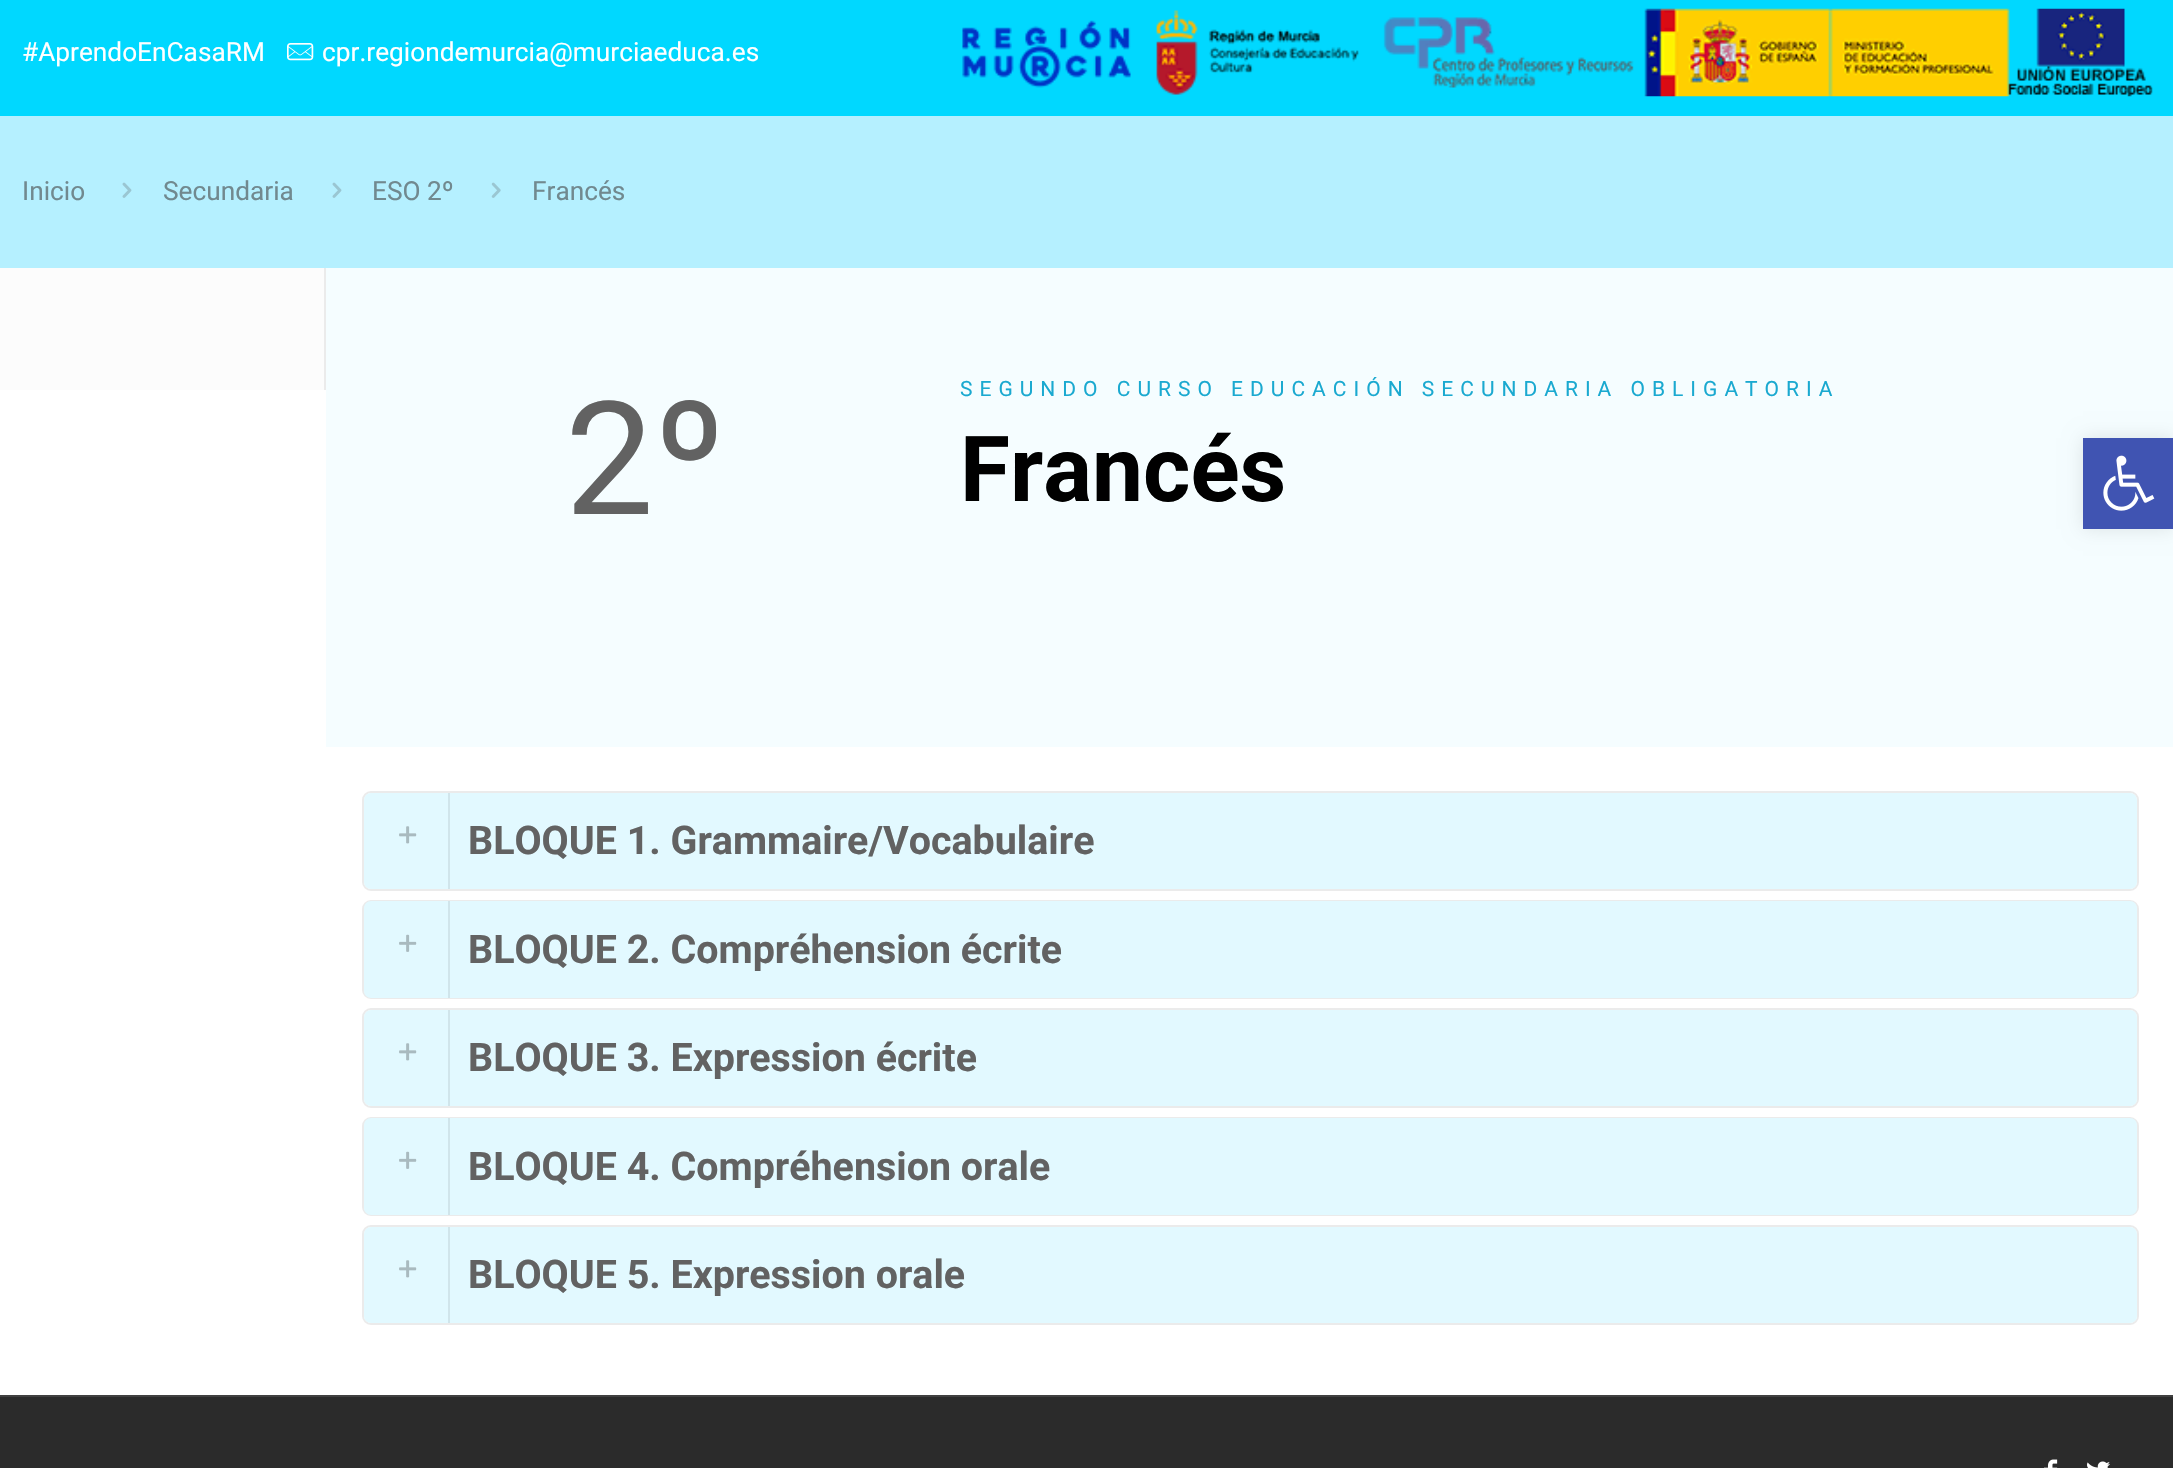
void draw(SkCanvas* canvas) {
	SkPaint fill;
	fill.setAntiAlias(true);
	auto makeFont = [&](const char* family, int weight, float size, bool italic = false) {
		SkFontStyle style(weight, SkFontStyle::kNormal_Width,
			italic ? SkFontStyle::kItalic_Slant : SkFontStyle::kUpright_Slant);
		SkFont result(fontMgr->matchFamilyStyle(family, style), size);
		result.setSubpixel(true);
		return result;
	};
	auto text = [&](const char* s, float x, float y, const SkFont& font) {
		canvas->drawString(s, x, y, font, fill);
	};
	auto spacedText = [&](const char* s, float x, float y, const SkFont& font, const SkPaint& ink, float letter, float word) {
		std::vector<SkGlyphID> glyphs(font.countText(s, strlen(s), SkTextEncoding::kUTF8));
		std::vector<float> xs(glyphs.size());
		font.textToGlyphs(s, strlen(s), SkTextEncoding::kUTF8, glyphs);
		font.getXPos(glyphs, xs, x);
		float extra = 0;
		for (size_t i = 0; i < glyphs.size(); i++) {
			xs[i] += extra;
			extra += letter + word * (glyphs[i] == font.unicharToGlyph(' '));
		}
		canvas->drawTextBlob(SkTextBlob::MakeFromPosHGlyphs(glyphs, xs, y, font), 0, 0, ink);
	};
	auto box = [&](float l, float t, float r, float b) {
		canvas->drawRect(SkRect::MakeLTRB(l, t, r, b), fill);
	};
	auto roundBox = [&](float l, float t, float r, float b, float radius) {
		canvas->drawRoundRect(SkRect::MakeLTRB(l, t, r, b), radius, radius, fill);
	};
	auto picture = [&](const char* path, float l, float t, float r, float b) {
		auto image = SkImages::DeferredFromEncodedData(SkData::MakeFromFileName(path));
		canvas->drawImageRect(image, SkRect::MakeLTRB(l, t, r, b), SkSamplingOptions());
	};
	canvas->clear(0xFFFFFFFF);
	fill.setColor(0xFF00D8FF);
	box(0, 0, 2173, 116);
	picture("image0.png", 287, 43, 314, 61);
	picture("image1.png", 962, 8, 2153, 97);
	fill.setColor(0xFFB5F0FF);
	box(0, 116, 2173, 268);
	picture("image2.png", 122, 182, 132, 198);
	picture("image2.png", 332, 182, 342, 198);
	picture("image3.png", 491, 182, 501, 198);
	fill.setColor(0xFFEBEBEB);
	box(324, 268, 326, 390);
	fill.setColor(0xFFFCFCFC);
	box(0, 268, 324, 390);
	fill.setColor(0xFFF5FDFF);
	box(326, 268, 2173, 747);
	fill.setStyle(SkPaint::kStroke_Style);
	fill.setStrokeWidth(2);
	fill.setColor(0xFFEBEBEB);
	canvas->drawRoundRect(SkRect::MakeLTRB(363, 792, 2138, 890), 8, 8, fill);
	fill.setStyle(SkPaint::kFill_Style);
	fill.setColor(0xFFE2F9FF);
	roundBox(364, 793, 2137, 889, 7);
	picture("image4.png", 399, 826, 417, 844);
	fill.setColor(0xFFD0E5EB);
	box(448, 793, 450, 889);
	fill.setStyle(SkPaint::kStroke_Style);
	fill.setColor(0xFFEBEBEB);
	canvas->drawRoundRect(SkRect::MakeLTRB(363, 901, 2138, 998), 8, 8, fill);
	fill.setStyle(SkPaint::kFill_Style);
	fill.setColor(0xFFE2F9FF);
	roundBox(364, 901, 2137, 998, 7);
	picture("image5.png", 399, 934, 417, 952);
	fill.setColor(0xFFD0E5EB);
	box(448, 901, 450, 998);
	fill.setStyle(SkPaint::kStroke_Style);
	fill.setColor(0xFFEBEBEB);
	canvas->drawRoundRect(SkRect::MakeLTRB(363, 1009, 2138, 1107), 8, 8, fill);
	fill.setStyle(SkPaint::kFill_Style);
	fill.setColor(0xFFE2F9FF);
	roundBox(364, 1010, 2137, 1106, 7);
	picture("image4.png", 399, 1043, 417, 1061);
	fill.setColor(0xFFD0E5EB);
	box(448, 1010, 450, 1106);
	fill.setStyle(SkPaint::kStroke_Style);
	fill.setColor(0xFFEBEBEB);
	canvas->drawRoundRect(SkRect::MakeLTRB(363, 1118, 2138, 1215), 8, 8, fill);
	fill.setStyle(SkPaint::kFill_Style);
	fill.setColor(0xFFE2F9FF);
	roundBox(364, 1118, 2137, 1215, 7);
	picture("image5.png", 399, 1151, 417, 1169);
	fill.setColor(0xFFD0E5EB);
	box(448, 1118, 450, 1215);
	fill.setStyle(SkPaint::kStroke_Style);
	fill.setColor(0xFFEBEBEB);
	canvas->drawRoundRect(SkRect::MakeLTRB(363, 1226, 2138, 1324), 8, 8, fill);
	fill.setStyle(SkPaint::kFill_Style);
	fill.setColor(0xFFE2F9FF);
	roundBox(364, 1227, 2137, 1323, 7);
	picture("image4.png", 399, 1260, 417, 1278);
	fill.setColor(0xFFD0E5EB);
	box(448, 1227, 450, 1323);
	fill.setColor(0xFF2B2B2B);
	box(0, 1397, 2173, 1468);
	fill.setColor(0xFF404040);
	box(0, 1395, 2173, 1397);
	picture("image6.png", 2044, 1459, 2058, 1468);
	picture("image7.png", 2087, 1461, 2110, 1468);
	fill.setColor(0x1A000000);
	fill.setMaskFilter(SkMaskFilter::MakeBlur(kNormal_SkBlurStyle, 9));
	canvas->drawRect(SkRect::MakeLTRB(2083, 438, 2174, 529), fill);
	fill.setMaskFilter(nullptr);
	fill.setColor(0xFF4054B2);
	box(2083, 438, 2173, 529);
	picture("image8.png", 2103, 455, 2155, 511);
	auto font1 = makeFont("Roboto", 400, 26.25f);
	fill.setColor(0xFFFFFFFF);
	text("#AprendoEnCasaRM", 22, 61, font1);
	text("cpr.regiondemurcia@murciaeduca.es", 322, 61, font1);
	fill.setColor(0xFF71898F);
	text("Inicio", 22, 200, font1);
	text("Secundaria", 163, 200, font1);
	text("ESO 2º", 372, 200, font1);
	text("Francés", 532, 200, font1);
	auto font2 = makeFont("Roboto", 400, 158);
	fill.setColor(0xFF626262);
	text("2º", 565, 514, font2);
	auto font3 = makeFont("Roboto", 400, 21);
	fill.setColor(0xFF1AA9D0);
	spacedText("SEGUNDO CURSO EDUCACIÓN SECUNDARIA OBLIGATORIA", 960, 396, font3, fill, 7, 0);
	auto font4 = makeFont("Roboto", 700, 91);
	fill.setColor(0xFF000000);
	text("Francés", 960, 501, font4);
	auto font5 = makeFont("Roboto", 700, 39.4f);
	fill.setColor(0xFF626262);
	text("BLOQUE 1. Grammaire/Vocabulaire", 468, 854, font5);
	text("BLOQUE 2. Compréhension écrite", 468, 963, font5);
	text("BLOQUE 3. Expression écrite", 468, 1071, font5);
	text("BLOQUE 4. Compréhension orale", 468, 1180, font5);
	text("BLOQUE 5. Expression orale", 468, 1288, font5);
}
